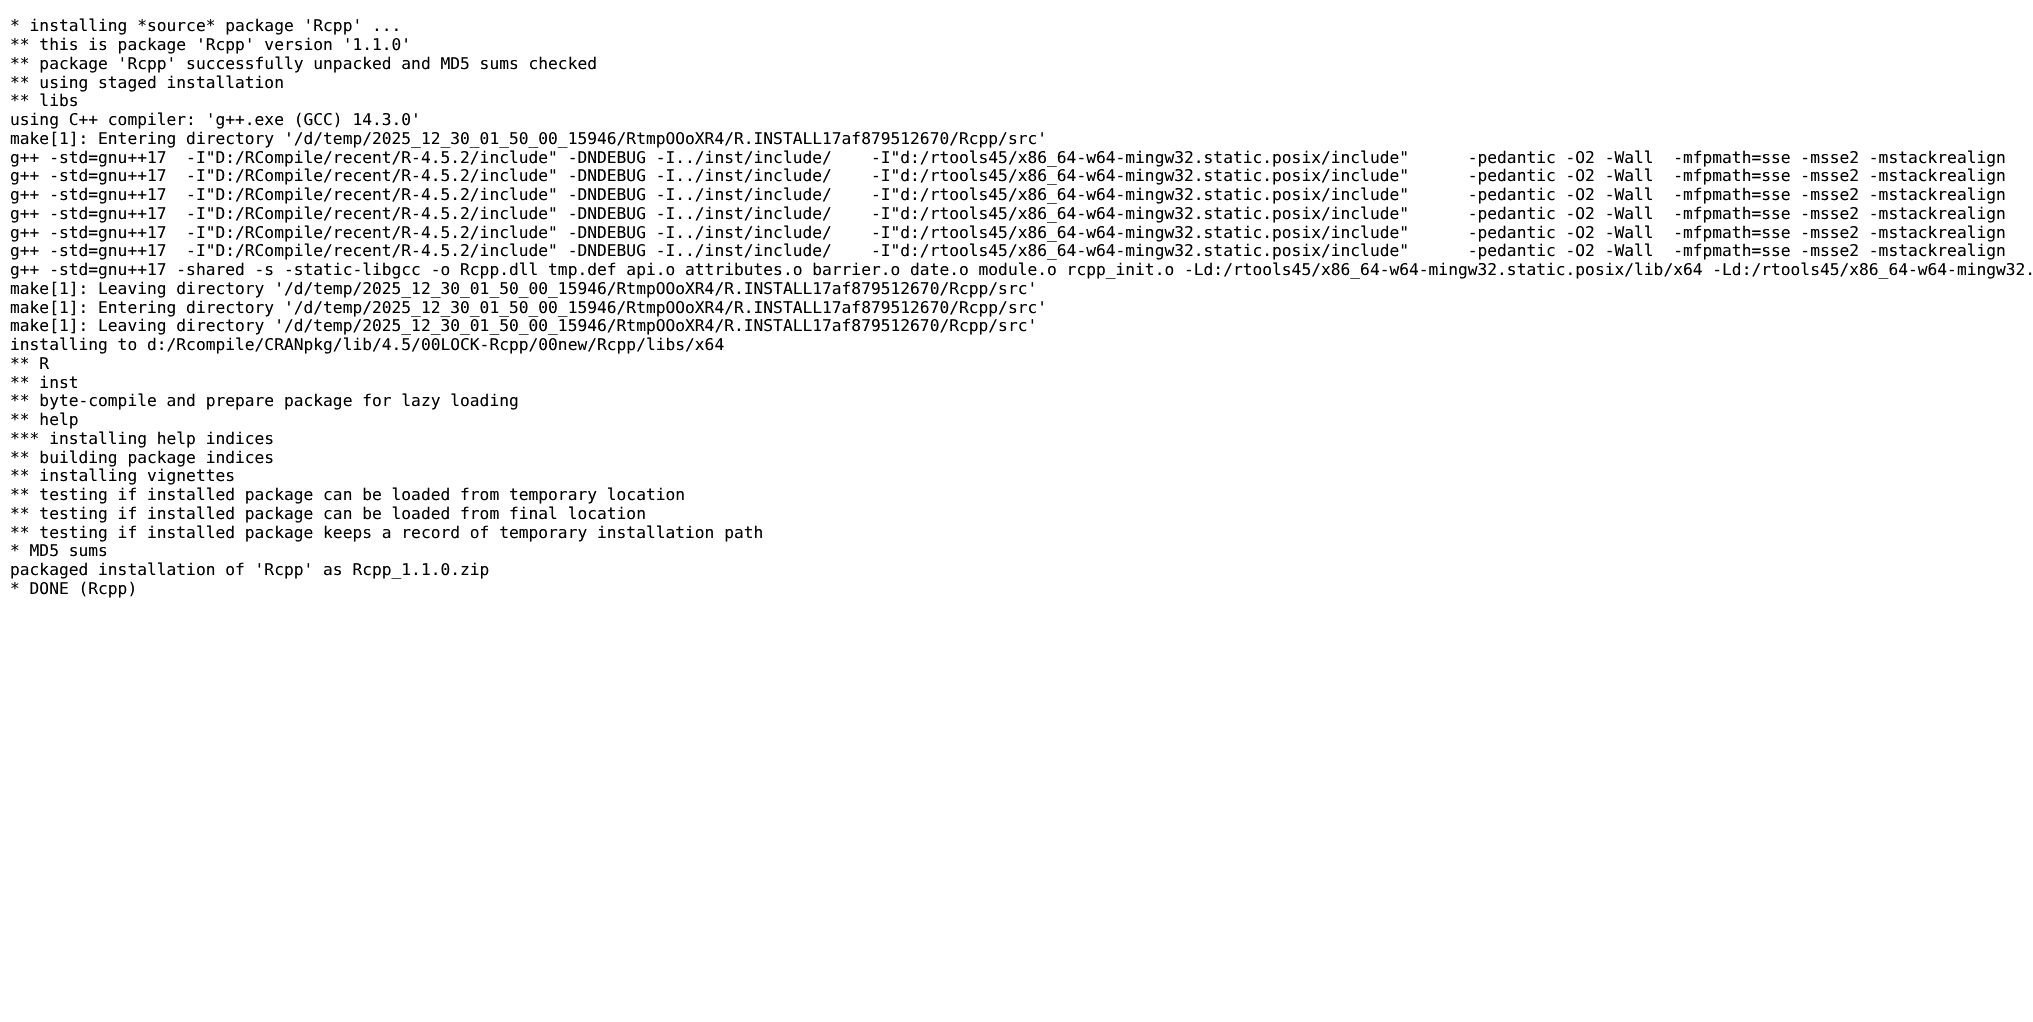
void draw(SkCanvas* canvas) {
	SkPaint fill;
	fill.setAntiAlias(true);
	auto makeFont = [&](const char* family, int weight, float size, bool italic = false) {
		SkFontStyle style(weight, SkFontStyle::kNormal_Width,
			italic ? SkFontStyle::kItalic_Slant : SkFontStyle::kUpright_Slant);
		SkFont result(fontMgr->matchFamilyStyle(family, style), size);
		result.setSubpixel(true);
		return result;
	};
	auto text = [&](const char* s, float x, float y, const SkFont& font) {
		canvas->drawString(s, x, y, font, fill);
	};
	canvas->clear(0xFFFFFFFF);
	auto font1 = makeFont("DejaVu Sans Mono", 400, 16.25f);
	fill.setColor(0xFF000000);
	text("* installing *source* package 'Rcpp' ...", 10, 31, font1);
	text("** this is package 'Rcpp' version '1.1.0'", 10, 50, font1);
	text("** package 'Rcpp' successfully unpacked and MD5 sums checked", 10, 69, font1);
	text("** using staged installation", 10, 88, font1);
	text("** libs", 10, 106, font1);
	text("using C++ compiler: 'g++.exe (GCC) 14.3.0'", 10, 125, font1);
	text("make[1]: Entering directory '/d/temp/2025_12_30_01_50_00_15946/RtmpOOoXR4/R.INSTALL17af879512670/Rcpp/src'", 10, 144, font1);
	text("g++ -std=gnu++17  -I\"D:/RCompile/recent/R-4.5.2/include\" -DNDEBUG -I../inst/include/    -I\"d:/rtools45/x86_64-w64-mingw32.static.posix/include\"      -pedantic -O2 -Wall  -mfpmath=sse -msse2 -mstackrealign", 10, 163, font1);
	text("g++ -std=gnu++17  -I\"D:/RCompile/recent/R-4.5.2/include\" -DNDEBUG -I../inst/include/    -I\"d:/rtools45/x86_64-w64-mingw32.static.posix/include\"      -pedantic -O2 -Wall  -mfpmath=sse -msse2 -mstackrealign", 10, 181, font1);
	text("g++ -std=gnu++17  -I\"D:/RCompile/recent/R-4.5.2/include\" -DNDEBUG -I../inst/include/    -I\"d:/rtools45/x86_64-w64-mingw32.static.posix/include\"      -pedantic -O2 -Wall  -mfpmath=sse -msse2 -mstackrealign", 10, 200, font1);
	text("g++ -std=gnu++17  -I\"D:/RCompile/recent/R-4.5.2/include\" -DNDEBUG -I../inst/include/    -I\"d:/rtools45/x86_64-w64-mingw32.static.posix/include\"      -pedantic -O2 -Wall  -mfpmath=sse -msse2 -mstackrealign", 10, 219, font1);
	text("g++ -std=gnu++17  -I\"D:/RCompile/recent/R-4.5.2/include\" -DNDEBUG -I../inst/include/    -I\"d:/rtools45/x86_64-w64-mingw32.static.posix/include\"      -pedantic -O2 -Wall  -mfpmath=sse -msse2 -mstackrealign", 10, 238, font1);
	text("g++ -std=gnu++17  -I\"D:/RCompile/recent/R-4.5.2/include\" -DNDEBUG -I../inst/include/    -I\"d:/rtools45/x86_64-w64-mingw32.static.posix/include\"      -pedantic -O2 -Wall  -mfpmath=sse -msse2 -mstackrealign", 10, 256, font1);
	text("g++ -std=gnu++17 -shared -s -static-libgcc -o Rcpp.dll tmp.def api.o attributes.o barrier.o date.o module.o rcpp_init.o -Ld:/rtools45/x86_64-w64-mingw32.static.posix/lib/x64 -Ld:/rtools45/x86_64-w64-mingw32.", 10, 275, font1);
	text("make[1]: Leaving directory '/d/temp/2025_12_30_01_50_00_15946/RtmpOOoXR4/R.INSTALL17af879512670/Rcpp/src'", 10, 294, font1);
	text("make[1]: Entering directory '/d/temp/2025_12_30_01_50_00_15946/RtmpOOoXR4/R.INSTALL17af879512670/Rcpp/src'", 10, 313, font1);
	text("make[1]: Leaving directory '/d/temp/2025_12_30_01_50_00_15946/RtmpOOoXR4/R.INSTALL17af879512670/Rcpp/src'", 10, 331, font1);
	text("installing to d:/Rcompile/CRANpkg/lib/4.5/00LOCK-Rcpp/00new/Rcpp/libs/x64", 10, 350, font1);
	text("** R", 10, 369, font1);
	text("** inst", 10, 388, font1);
	text("** byte-compile and prepare package for lazy loading", 10, 406, font1);
	text("** help", 10, 425, font1);
	text("*** installing help indices", 10, 444, font1);
	text("** building package indices", 10, 463, font1);
	text("** installing vignettes", 10, 481, font1);
	text("** testing if installed package can be loaded from temporary location", 10, 500, font1);
	text("** testing if installed package can be loaded from final location", 10, 519, font1);
	text("** testing if installed package keeps a record of temporary installation path", 10, 538, font1);
	text("* MD5 sums", 10, 556, font1);
	text("packaged installation of 'Rcpp' as Rcpp_1.1.0.zip", 10, 575, font1);
	text("* DONE (Rcpp)", 10, 594, font1);
}
